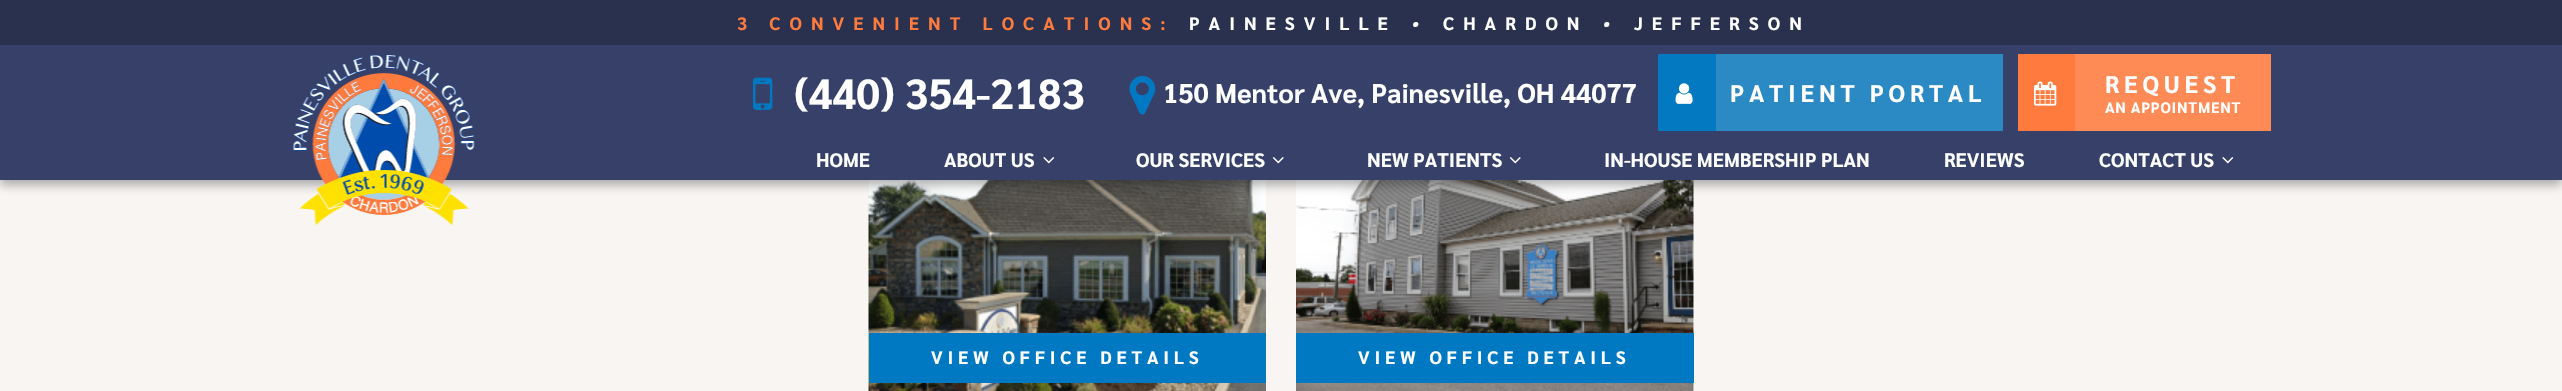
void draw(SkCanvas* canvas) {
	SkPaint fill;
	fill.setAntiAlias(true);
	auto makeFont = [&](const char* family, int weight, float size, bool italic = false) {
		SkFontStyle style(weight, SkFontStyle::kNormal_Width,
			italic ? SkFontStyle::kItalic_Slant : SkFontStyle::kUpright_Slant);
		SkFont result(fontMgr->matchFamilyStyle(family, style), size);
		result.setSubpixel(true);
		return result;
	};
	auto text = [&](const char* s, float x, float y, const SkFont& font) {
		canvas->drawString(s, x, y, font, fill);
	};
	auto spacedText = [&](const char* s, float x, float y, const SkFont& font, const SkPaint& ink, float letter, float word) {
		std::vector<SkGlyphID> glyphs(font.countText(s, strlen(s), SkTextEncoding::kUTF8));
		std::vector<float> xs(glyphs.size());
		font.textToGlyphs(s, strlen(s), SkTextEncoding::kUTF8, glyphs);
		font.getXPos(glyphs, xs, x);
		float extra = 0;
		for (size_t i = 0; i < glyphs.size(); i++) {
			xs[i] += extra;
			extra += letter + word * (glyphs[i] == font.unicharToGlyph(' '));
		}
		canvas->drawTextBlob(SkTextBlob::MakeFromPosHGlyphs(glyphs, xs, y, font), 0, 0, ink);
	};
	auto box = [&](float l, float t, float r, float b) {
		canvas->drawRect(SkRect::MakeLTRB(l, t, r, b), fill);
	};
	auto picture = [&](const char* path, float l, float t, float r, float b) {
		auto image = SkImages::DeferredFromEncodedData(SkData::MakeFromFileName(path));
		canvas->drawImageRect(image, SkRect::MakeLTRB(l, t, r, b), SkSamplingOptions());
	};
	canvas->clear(0xFFF8F5F3);
	fill.setColor(0xFFFFFFFF);
	box(869, 180, 1266, 388);
	picture("image7.png", 868, 180, 1266, 391);
	box(1296, 180, 1694, 391);
	picture("image8.png", 1296, 180, 1694, 391);
	fill.setColor(0x59181718);
	fill.setMaskFilter(SkMaskFilter::MakeBlur(kNormal_SkBlurStyle, 5));
	canvas->drawRect(SkRect::MakeLTRB(0, 5, 2562, 185), fill);
	fill.setMaskFilter(nullptr);
	fill.setColor(0xFF364068);
	box(0, 45, 2562, 180);
	fill.setColor(0xFF29314E);
	box(0, 0, 2562, 45);
	picture("image0.png", 292, 54, 475, 225);
	picture("image1.png", 753, 77, 773, 110);
	picture("image2.png", 1129, 76, 1156, 115);
	fill.setColor(0xFF2B89C3);
	box(1716, 54, 2003, 131);
	fill.setColor(0xFF0279C1);
	box(1658, 54, 1716, 131);
	picture("image3.png", 1675, 83, 1693, 104);
	fill.setColor(0xFFFE8B56);
	box(2075, 54, 2271, 131);
	fill.setColor(0xFFFE7A3D);
	box(2018, 54, 2075, 131);
	picture("image4.png", 2034, 81, 2057, 106);
	picture("image5.png", 1043, 157, 1055, 164);
	picture("image6.png", 1272, 157, 1284, 164);
	picture("image6.png", 1509, 157, 1521, 164);
	picture("image5.png", 2222, 157, 2234, 164);
	fill.setColor(0xFF0079C2);
	box(869, 333, 1266, 383);
	box(1296, 333, 1694, 383);
	auto font1 = makeFont("Sarabun", 700, 18);
	fill.setColor(0xFFFE7A3D);
	spacedText("3 CONVENIENT LOCATIONS:", 737, 30, font1, fill, 9, 0);
	fill.setColor(0xFFFFFFFF);
	spacedText("PAINESVILLE", 1189, 30, font1, fill, 9, 0);
	auto font2 = makeFont("Sarabun", 700, 18, true);
	spacedText("•", 1412, 30, font2, fill, 9, 0);
	spacedText("CHARDON", 1443, 30, font1, fill, 9, 0);
	spacedText("•", 1603, 30, font2, fill, 9, 0);
	spacedText("JEFFERSON", 1634, 30, font1, fill, 9, 0);
	auto font3 = makeFont("Sarabun", 700, 42);
	text("(440) 354-2183", 794, 109, font3);
	auto font4 = makeFont("Sarabun", 700, 27);
	text("150 Mentor Ave, Painesville, OH 44077", 1163, 103, font4);
	auto font5 = makeFont("Sarabun", 700, 24);
	spacedText("PATIENT PORTAL", 1730, 102, font5, fill, 4.75f, 0);
	spacedText("REQUEST", 2105, 93, font5, fill, 4.75f, 0);
	auto font6 = makeFont("Sarabun", 700, 15);
	spacedText("AN APPOINTMENT", 2105, 113, font6, fill, 0.75f, 0);
	auto font7 = makeFont("Sarabun", 700, 19.5f);
	text("HOME", 816, 167, font7);
	text("ABOUT US", 944, 167, font7);
	text("OUR SERVICES", 1136, 167, font7);
	text("NEW PATIENTS", 1367, 167, font7);
	text("IN-HOUSE MEMBERSHIP PLAN", 1604, 167, font7);
	text("REVIEWS", 1944, 167, font7);
	text("CONTACT US", 2099, 167, font7);
	spacedText("VIEW OFFICE DETAILS", 931, 364, font1, fill, 4.75f, 0);
	spacedText("VIEW OFFICE DETAILS", 1358, 364, font1, fill, 4.75f, 0);
}
